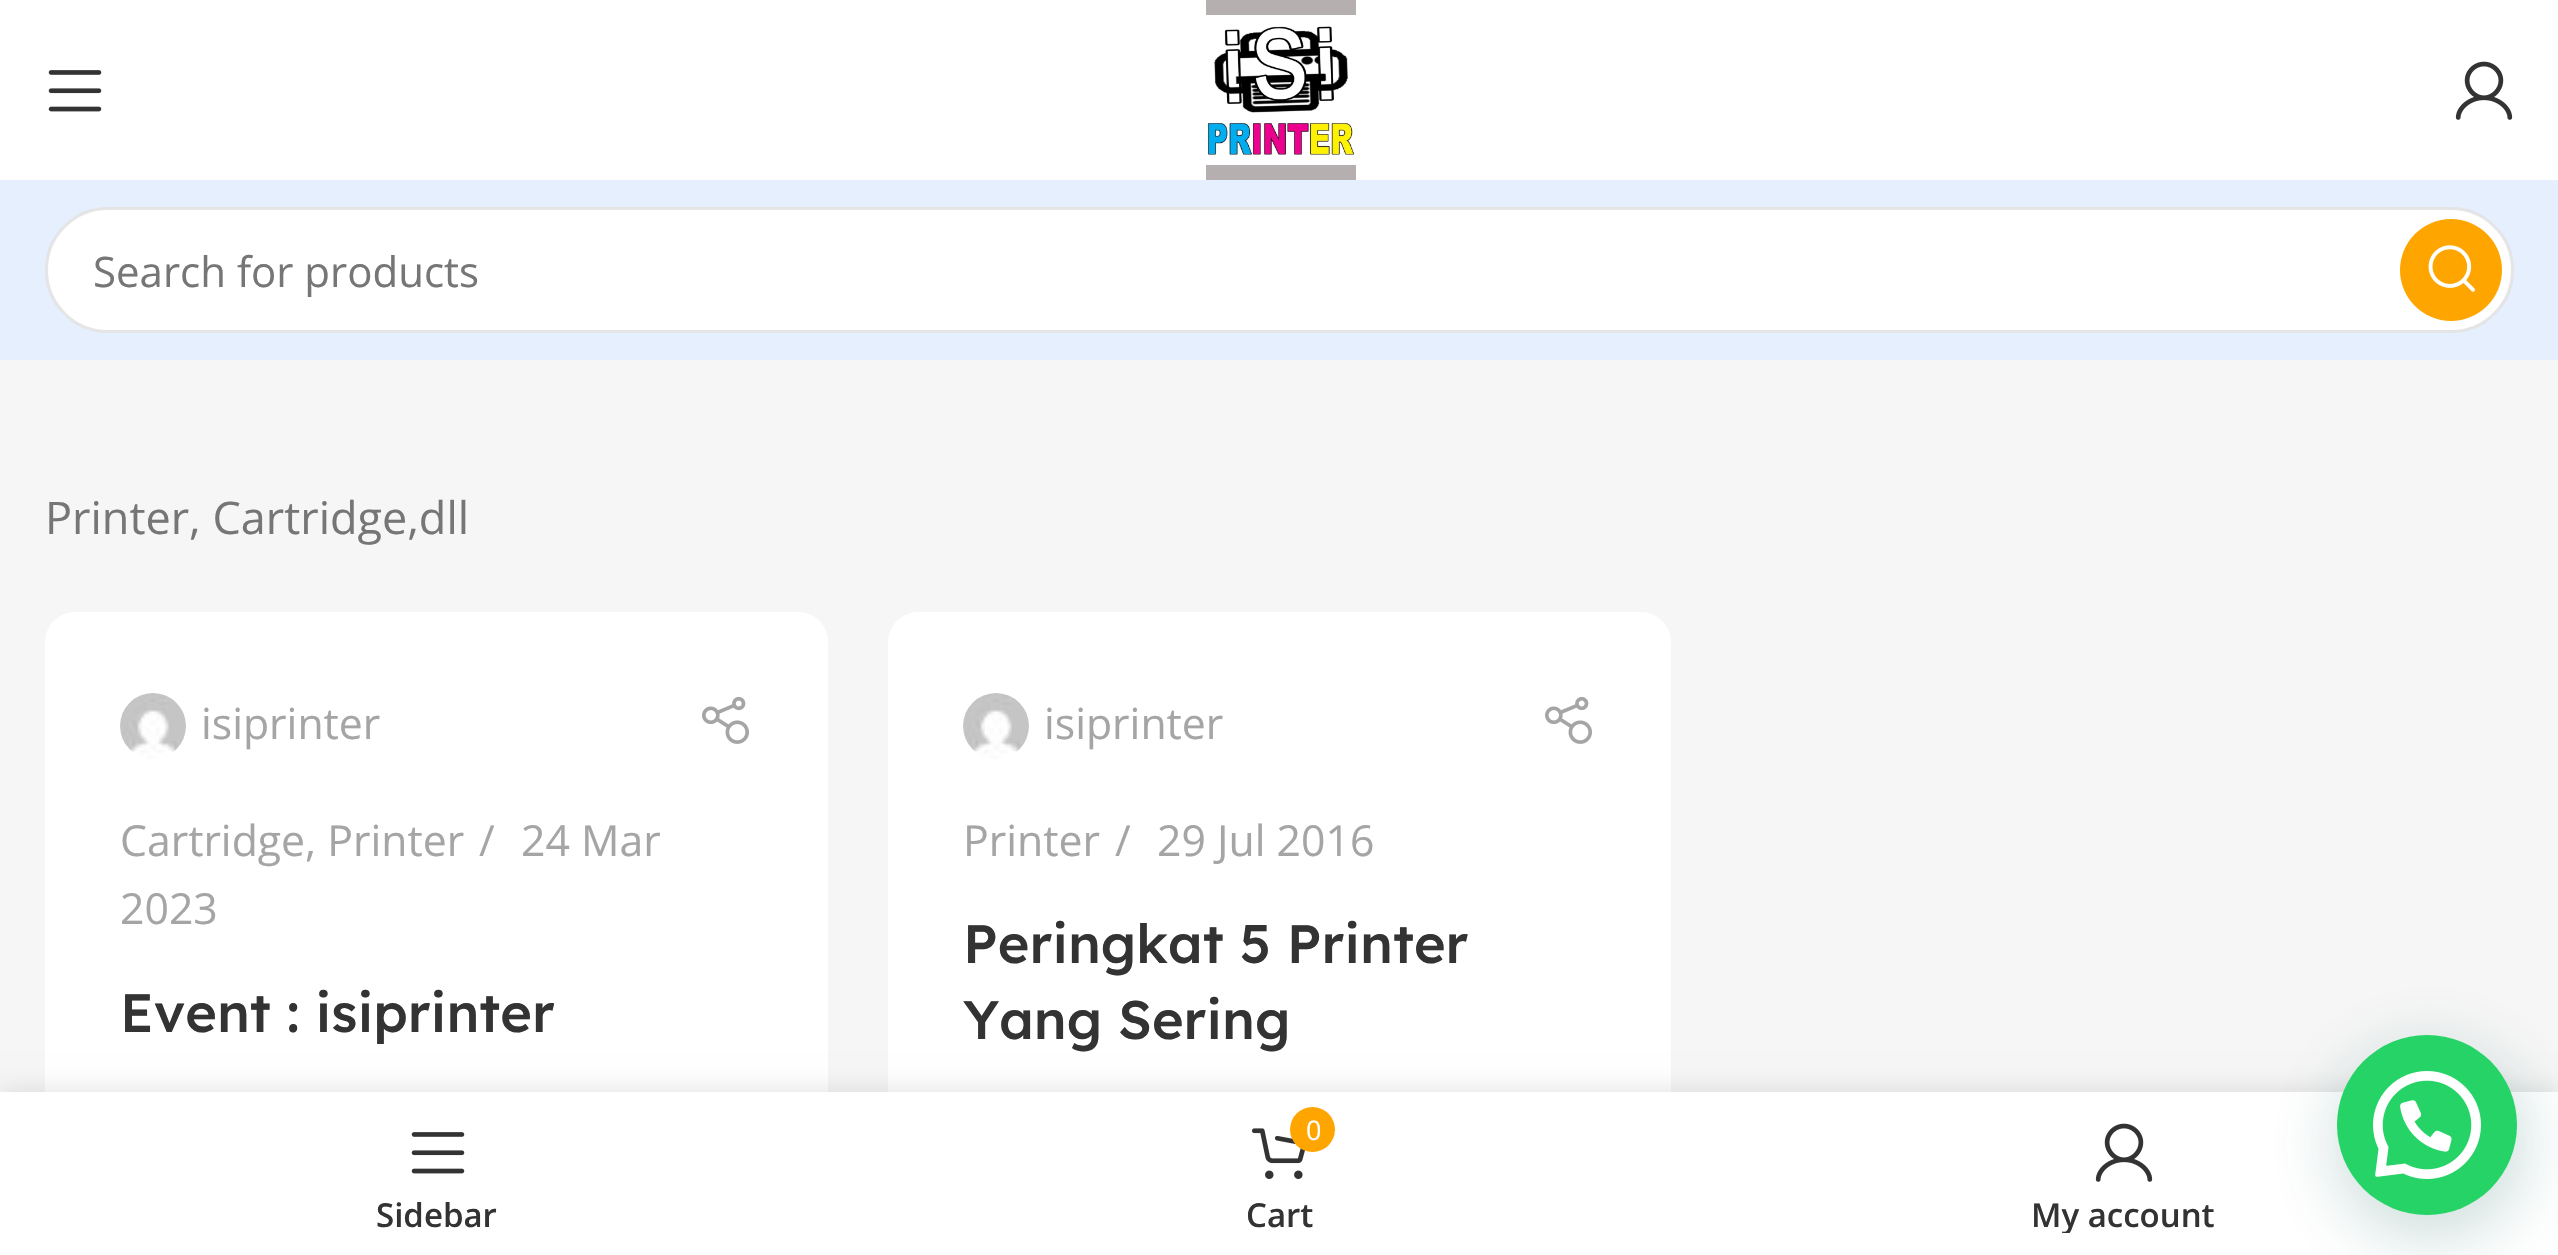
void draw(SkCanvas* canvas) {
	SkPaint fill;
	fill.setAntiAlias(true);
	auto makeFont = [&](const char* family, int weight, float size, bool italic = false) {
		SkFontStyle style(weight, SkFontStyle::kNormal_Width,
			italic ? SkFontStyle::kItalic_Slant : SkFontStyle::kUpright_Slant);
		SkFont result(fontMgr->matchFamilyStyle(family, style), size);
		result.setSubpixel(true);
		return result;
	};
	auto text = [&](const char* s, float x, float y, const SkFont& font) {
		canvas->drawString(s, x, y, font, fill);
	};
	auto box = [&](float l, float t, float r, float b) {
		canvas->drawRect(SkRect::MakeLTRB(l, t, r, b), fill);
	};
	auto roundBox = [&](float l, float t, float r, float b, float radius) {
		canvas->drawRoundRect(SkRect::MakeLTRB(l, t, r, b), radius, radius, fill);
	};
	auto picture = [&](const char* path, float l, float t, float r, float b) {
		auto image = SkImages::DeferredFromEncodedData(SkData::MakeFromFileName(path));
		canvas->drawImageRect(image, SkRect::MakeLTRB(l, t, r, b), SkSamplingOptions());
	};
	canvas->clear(0xFFFFFFFF);
	picture("image0.png", 48, 70, 102, 112);
	fill.setColor(0xFFB5AFB0);
	box(1206, 0, 1356, 180);
	picture("image1.png", 1206, 15, 1356, 165);
	picture("image2.png", 2455, 61, 2513, 120);
	fill.setColor(0xFFE6EFFD);
	box(0, 180, 2558, 360);
	fill.setColor(0xFFFFFFFF);
	roundBox(45, 207, 2514, 333, 63);
	fill.setStyle(SkPaint::kStroke_Style);
	fill.setStrokeWidth(3);
	fill.setColor(0x1A000000);
	canvas->drawRoundRect(SkRect::MakeLTRB(46.5f, 208.5f, 2512.5f, 331.5f), 61.5f, 61.5f, fill);
	fill.setStyle(SkPaint::kFill_Style);
	fill.setColor(0xFFFFA500);
	canvas->drawCircle(2451, 270, 51, fill);
	picture("image3.png", 2428, 245, 2475, 292);
	fill.setColor(0xFFF6F6F6);
	box(0, 360, 2558, 1092);
	fill.setColor(0xFFFFFFFF);
	roundBox(45, 612, 828, 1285, 30);
	picture("image4.png", 120, 693, 186, 759);
	picture("image5.png", 702, 696, 749, 744);
	roundBox(888, 612, 1671, 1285, 30);
	picture("image4.png", 963, 693, 1029, 759);
	picture("image5.png", 1545, 696, 1592, 744);
	fill.setColor(0x1F000000);
	fill.setMaskFilter(SkMaskFilter::MakeBlur(kNormal_SkBlurStyle, 13.5f));
	canvas->drawRect(SkRect::MakeLTRB(0, 1092, 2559, 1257), fill);
	fill.setMaskFilter(nullptr);
	fill.setColor(0xFFFFFFFF);
	box(0, 1092, 2558, 1255);
	picture("image0.png", 411, 1132, 465, 1174);
	picture("image6.png", 1252, 1128, 1305, 1179);
	fill.setColor(0xFFFFA500);
	canvas->drawCircle(1312.5f, 1129.5f, 22.5f, fill);
	picture("image2.png", 2095, 1123, 2153, 1182);
	fill.setColor(0x3D075E54);
	fill.setMaskFilter(SkMaskFilter::MakeBlur(kNormal_SkBlurStyle, 36));
	canvas->drawRoundRect(SkRect::MakeLTRB(2340, 1053, 2520, 1233), 90, 90, fill);
	fill.setMaskFilter(nullptr);
	fill.setColor(0xFF25D366);
	canvas->drawCircle(2427, 1125, 90, fill);
	picture("image7.png", 2373, 1071, 2481, 1179);
	auto font1 = makeFont("Open Sans", 400, 42);
	fill.setColor(0xFF767676);
	text("Search for products", 93, 287, font1);
	auto font2 = makeFont("Open Sans", 400, 45);
	text("Printer, Cartridge,dll", 45, 534, font2);
	auto font3 = makeFont("Open Sans", 400, 42.75f);
	fill.setColor(0xFFA5A5A5);
	text("isiprinter", 201, 739, font3);
	text("Cartridge, Printer", 120, 856, font3);
	text("/", 479, 856, font3);
	text("24 Mar", 521, 856, font3);
	text("2023", 120, 924, font3);
	auto font4 = makeFont("Lexend Deca", 500, 54);
	fill.setColor(0xFF333333);
	text("Event : isiprinter", 120, 1032, font4);
	fill.setColor(0xFFA5A5A5);
	text("isiprinter", 1044, 739, font3);
	text("Printer", 963, 856, font3);
	text("/", 1115, 856, font3);
	text("29 Jul 2016", 1157, 856, font3);
	fill.setColor(0xFF333333);
	text("Peringkat 5 Printer", 963, 963, font4);
	text("Yang Sering", 963, 1039, font4);
	auto font5 = makeFont("Open Sans", 600, 33);
	text("Sidebar", 376, 1227, font5);
	auto font6 = makeFont("Open Sans", 400, 27);
	fill.setColor(0xFFFFFFFF);
	text("0", 1306, 1140, font6);
	fill.setColor(0xFF333333);
	text("Cart", 1246, 1227, font5);
	canvas->save();
	canvas->clipRect(SkRect::MakeLTRB(1731, 1194, 2514, 1233));
	text("My account", 2031, 1227, font5);
	canvas->restore();
}
